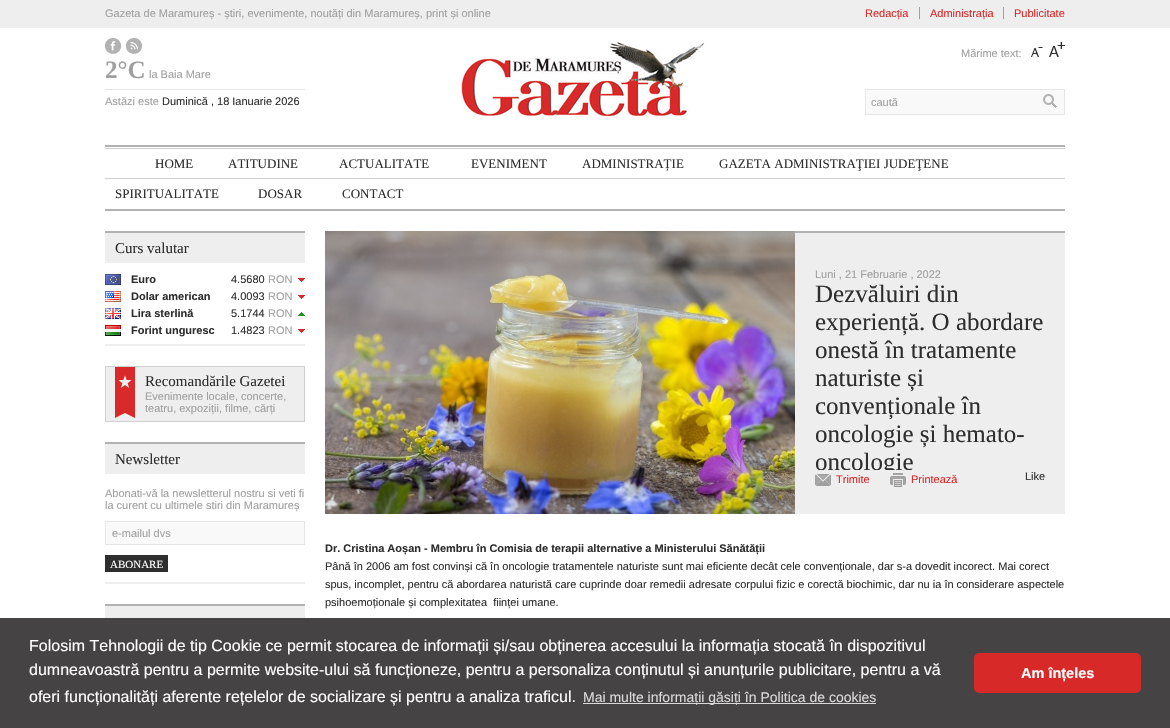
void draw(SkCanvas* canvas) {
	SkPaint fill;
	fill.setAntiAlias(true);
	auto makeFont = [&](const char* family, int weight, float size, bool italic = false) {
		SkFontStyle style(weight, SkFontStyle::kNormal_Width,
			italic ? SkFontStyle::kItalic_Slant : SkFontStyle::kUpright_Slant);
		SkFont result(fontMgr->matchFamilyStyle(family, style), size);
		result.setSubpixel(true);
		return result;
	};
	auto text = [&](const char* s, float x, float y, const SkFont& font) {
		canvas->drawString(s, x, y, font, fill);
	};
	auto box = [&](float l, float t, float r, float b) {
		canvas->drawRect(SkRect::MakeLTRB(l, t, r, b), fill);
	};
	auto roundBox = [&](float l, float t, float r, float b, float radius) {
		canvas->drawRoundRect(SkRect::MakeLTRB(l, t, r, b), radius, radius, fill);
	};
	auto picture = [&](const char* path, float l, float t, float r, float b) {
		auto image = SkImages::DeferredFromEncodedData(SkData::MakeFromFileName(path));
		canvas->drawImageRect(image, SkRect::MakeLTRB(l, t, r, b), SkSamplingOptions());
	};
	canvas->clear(0xFFFFFFFF);
	fill.setColor(0xFFEEEEEE);
	box(0, 0, 1170, 28);
	fill.setColor(0xFFA0A0A0);
	box(919, 7, 920, 19);
	box(1003, 7, 1004, 19);
	picture("image0.png", 105, 38, 121, 54);
	picture("image1.png", 126, 38, 142, 54);
	fill.setColor(0xFFE5E5E5);
	box(105, 89, 305, 90);
	picture("image2.png", 461, 42, 705, 116);
	picture("image3.png", 1031, 47, 1043, 57);
	picture("image4.png", 1049, 42, 1065, 57);
	fill.setColor(0xFFF9F9F9);
	box(866, 90, 1035, 114);
	fill.setColor(0xFFE5E5E5);
	box(865, 89, 1035, 90);
	box(865, 114, 1035, 115);
	box(865, 89, 866, 115);
	picture("image5.png", 1035, 89, 1065, 115);
	fill.setColor(0xFFB2B2B2);
	box(105, 145, 1065, 147);
	box(105, 209, 1065, 211);
	fill.setColor(0xFFCFCFCF);
	box(105, 148, 1065, 149);
	box(105, 178, 1065, 179);
	fill.setColor(0xFFEEEEEE);
	box(105, 233, 305, 263);
	fill.setColor(0xFFB2B2B2);
	box(105, 231, 305, 233);
	fill.setColor(0xFFEEEEEE);
	box(105, 344, 305, 346);
	picture("image6.png", 105, 274, 121, 285);
	picture("image7.png", 298, 278, 305, 282);
	picture("image8.png", 105, 291, 121, 302);
	picture("image7.png", 298, 295, 305, 299);
	picture("image9.png", 105, 308, 121, 319);
	picture("image10.png", 298, 312, 305, 316);
	picture("image11.png", 105, 325, 121, 336);
	picture("image7.png", 298, 329, 305, 333);
	box(106, 367, 304, 421);
	picture("image12.png", 115, 367, 135, 418);
	fill.setStyle(SkPaint::kStroke_Style);
	fill.setStrokeWidth(1);
	fill.setColor(0xFFCFCFCF);
	canvas->drawRect(SkRect::MakeLTRB(105.5f, 366.5f, 304.5f, 421.5f), fill);
	fill.setStyle(SkPaint::kFill_Style);
	fill.setColor(0xFFEEEEEE);
	box(105, 444, 305, 474);
	fill.setColor(0xFFB2B2B2);
	box(105, 442, 305, 444);
	fill.setColor(0xFFEEEEEE);
	box(105, 582, 305, 584);
	fill.setColor(0xFFF9F9F9);
	canvas->drawRect(SkRect::MakeLTRB(105.5f, 521.5f, 304.5f, 544.5f), fill);
	fill.setStyle(SkPaint::kStroke_Style);
	fill.setColor(0xFFE5E5E5);
	canvas->drawRect(SkRect::MakeLTRB(105.5f, 521.5f, 304.5f, 544.5f), fill);
	fill.setStyle(SkPaint::kFill_Style);
	fill.setColor(0xFF2E2E2E);
	box(105, 555, 168, 572);
	fill.setColor(0xFFEEEEEE);
	box(105, 606, 305, 618);
	fill.setColor(0xFFB2B2B2);
	box(105, 604, 305, 606);
	picture("image13.png", 325, 231, 795, 514);
	fill.setColor(0xFFEEEEEE);
	box(795, 233, 1065, 514);
	fill.setColor(0xFFB2B2B2);
	box(795, 231, 1065, 233);
	picture("image14.png", 815, 474, 831, 486);
	picture("image15.png", 890, 473, 906, 487);
	fill.setColor(0xFF454343);
	box(0, 618, 1170, 728);
	fill.setColor(0xFFDAD9D9);
	box(583, 703, 876, 704);
	fill.setColor(0xFFD72928);
	roundBox(974, 653, 1141, 693, 5);
	auto font1 = makeFont("Liberation Sans", 400, 11);
	fill.setColor(0xFFA0A0A0);
	text("Gazeta de Maramureș - știri, evenimente, noutăți din Maramureș, print și online", 105, 17, font1);
	fill.setColor(0xFFD82A2A);
	text("Redacția", 865, 17, font1);
	text("Administrația", 930, 17, font1);
	text("Publicitate", 1014, 17, font1);
	auto font2 = makeFont("Liberation Serif", 700, 25);
	fill.setColor(0xFFA0A0A0);
	text("2°C", 105, 78, font2);
	text("la Baia Mare", 149, 78, font1);
	text("Astăzi este", 105, 105, font1);
	fill.setColor(0xFF2E2E2E);
	text("Duminică , 18 Ianuarie 2026", 162, 105, font1);
	fill.setColor(0xFFA0A0A0);
	text("Mărime text:", 961, 57, font1);
	text("caută", 871, 106, font1);
	auto font3 = makeFont("Liberation Serif", 400, 13);
	fill.setColor(0xFF2E2E2E);
	text("HOME", 155, 168, font3);
	text("ATITUDINE", 228, 168, font3);
	text("ACTUALITATE", 339, 168, font3);
	text("EVENIMENT", 471, 168, font3);
	text("ADMINISTRAȚIE", 582, 168, font3);
	text("GAZETA ADMINISTRAŢIEI JUDEŢENE", 719, 168, font3);
	text("SPIRITUALITATE", 115, 198, font3);
	text("DOSAR", 258, 198, font3);
	text("CONTACT", 342, 198, font3);
	auto font4 = makeFont("Liberation Serif", 400, 15);
	text("Curs valutar", 115, 253, font4);
	auto font5 = makeFont("Liberation Sans", 700, 11);
	text("Euro", 131, 283, font5);
	text("4.5680", 231, 283, font1);
	fill.setColor(0xFFA0A0A0);
	text("RON", 268, 283, font1);
	fill.setColor(0xFF2E2E2E);
	text("Dolar american", 131, 300, font5);
	text("4.0093", 231, 300, font1);
	fill.setColor(0xFFA0A0A0);
	text("RON", 268, 300, font1);
	fill.setColor(0xFF2E2E2E);
	text("Lira sterlină", 131, 317, font5);
	text("5.1744", 231, 317, font1);
	fill.setColor(0xFFA0A0A0);
	text("RON", 268, 317, font1);
	fill.setColor(0xFF2E2E2E);
	text("Forint unguresc", 131, 334, font5);
	text("1.4823", 231, 334, font1);
	fill.setColor(0xFFA0A0A0);
	text("RON", 268, 334, font1);
	fill.setColor(0xFF2E2E2E);
	text("Recomandările Gazetei", 145, 386, font4);
	fill.setColor(0xFFA0A0A0);
	text("Evenimente locale, concerte,", 145, 400, font1);
	text("teatru, expoziții, filme, cărți", 145, 412, font1);
	fill.setColor(0xFF2E2E2E);
	text("Newsletter", 115, 464, font4);
	fill.setColor(0xFFA0A0A0);
	text("Abonati-vă la newsletterul nostru si veti fi", 105, 497, font1);
	text("la curent cu ultimele stiri din Maramureș", 105, 509, font1);
	text("e-mailul dvs", 112, 537, font1);
	auto font6 = makeFont("Liberation Serif", 400, 11);
	fill.setColor(0xFFFFFFFF);
	text("ABONARE", 110, 568, font6);
	fill.setColor(0xFFA0A0A0);
	text("Luni , 21 Februarie , 2022", 815, 278, font1);
	auto font7 = makeFont("Liberation Serif", 400, 25);
	fill.setColor(0xFF2E2E2E);
	text("Dezvăluiri din", 815, 302, font7);
	text("experiență. O abordare", 815, 330, font7);
	text("onestă în tratamente", 815, 358, font7);
	text("naturiste și", 815, 386, font7);
	text("convenționale în", 815, 414, font7);
	text("oncologie și hemato-", 815, 442, font7);
	canvas->save();
	canvas->clipRect(SkRect::MakeLTRB(815, 280, 1045, 470));
	text("oncologie", 815, 470, font7);
	canvas->restore();
	fill.setColor(0xFFD82A2A);
	text("Trimite", 836, 483, font1);
	text("Printează", 911, 483, font1);
	fill.setColor(0xFF2E2E2E);
	text("Like", 1025, 480, font1);
	text("Dr. Cristina Aoșan - Membru în Comisia de terapii alternative a Ministerului Sănătății", 325, 552, font5);
	text("Până în 2006 am fost convinși că în oncologie tratamentele naturiste sunt mai eficiente decât cele convenționale, dar s-a dovedit incorect. Mai corect", 325, 570, font1);
	text("spus, incomplet, pentru că abordarea naturistă care cuprinde doar remedii adresate corpului fizic e corectă biochimic, dar nu ia în considerare aspectele", 325, 588, font1);
	text("psihoemoționale și complexitatea  ființei umane.", 325, 606, font1);
	auto font8 = makeFont("Liberation Sans", 400, 16);
	fill.setColor(0xFFFFFFFF);
	text("Folosim Tehnologii de tip Cookie ce permit stocarea de informații și/sau obținerea accesului la informația stocată în dispozitivul", 29, 651, font8);
	text("dumneavoastră pentru a permite website-ului să funcționeze, pentru a personaliza conținutul și anunțurile publicitare, pentru a vă", 29, 675, font8);
	text("oferi funcționalități aferente rețelelor de socializare și pentru a analiza traficul.", 29, 702, font8);
	auto font9 = makeFont("Liberation Sans", 400, 14);
	fill.setColor(0xFFDAD9D9);
	text("Mai multe informații găsiți în Politica de cookies", 583, 702, font9);
	auto font10 = makeFont("Liberation Sans", 700, 14.5f);
	fill.setColor(0xFFFFFFFF);
	text("Am înțeles", 1021, 678, font10);
}
